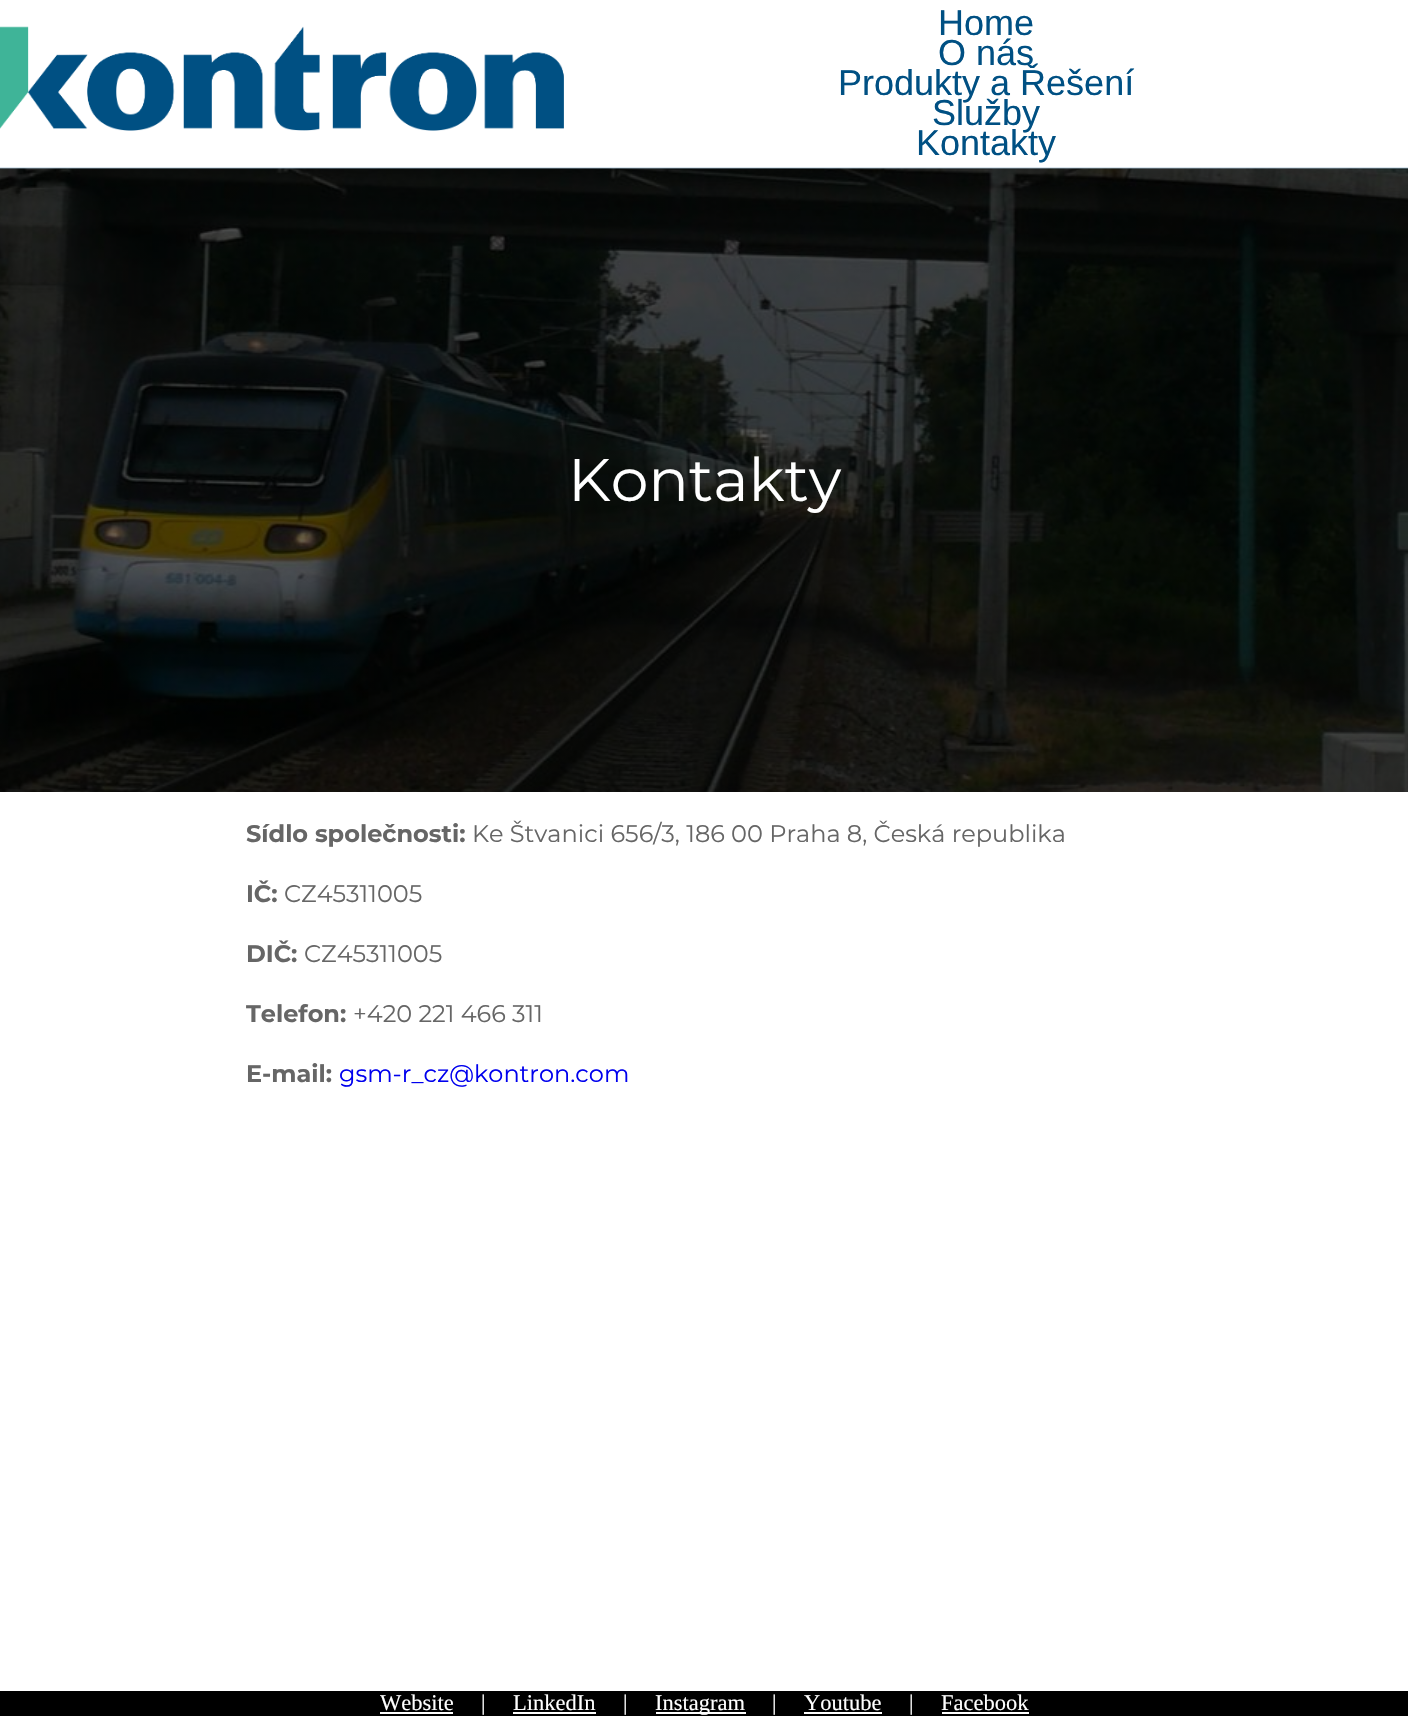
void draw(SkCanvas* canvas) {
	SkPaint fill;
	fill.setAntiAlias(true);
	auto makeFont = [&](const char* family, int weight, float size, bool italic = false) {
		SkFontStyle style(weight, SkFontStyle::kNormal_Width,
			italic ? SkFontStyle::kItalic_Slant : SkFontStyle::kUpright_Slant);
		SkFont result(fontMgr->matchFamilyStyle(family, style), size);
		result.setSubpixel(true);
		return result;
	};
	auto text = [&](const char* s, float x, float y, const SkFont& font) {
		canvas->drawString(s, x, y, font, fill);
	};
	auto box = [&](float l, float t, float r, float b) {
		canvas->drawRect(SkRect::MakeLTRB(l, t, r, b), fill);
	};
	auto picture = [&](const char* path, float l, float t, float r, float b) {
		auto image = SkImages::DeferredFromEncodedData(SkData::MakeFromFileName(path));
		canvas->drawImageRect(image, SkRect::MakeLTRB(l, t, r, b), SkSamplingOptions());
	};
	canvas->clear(0xFFFFFFFF);
	picture("image1.png", 0, 168, 1408, 792);
	fill.setColor(0x66A1BBD0);
	box(0, 167, 1408, 169);
	picture("image0.png", 0, 26, 564, 131);
	fill.setColor(0xFF000000);
	box(0, 1691, 1408, 1716);
	fill.setColor(0xFFFFFFFF);
	box(380, 1712, 453, 1714);
	box(513, 1712, 596, 1714);
	box(656, 1712, 746, 1714);
	box(804, 1712, 882, 1714);
	box(942, 1712, 1029, 1714);
	auto font1 = makeFont("Liberation Sans", 400, 36);
	fill.setColor(0xFF005083);
	text("Home", 938, 35, font1);
	text("O nás", 938, 65, font1);
	text("Produkty a Řešení", 838, 95, font1);
	text("Služby", 932, 125, font1);
	text("Kontakty", 916, 155, font1);
	auto font2 = makeFont("Montserrat", 400, 60);
	fill.setColor(0xFFFFFFFF);
	text("Kontakty", 568, 501, font2);
	auto font3 = makeFont("Montserrat", 700, 24);
	fill.setColor(0xFF666666);
	text("Sídlo společnosti:", 246, 842, font3);
	auto font4 = makeFont("Montserrat", 400, 24);
	text("Ke Štvanici 656/3, 186 00 Praha 8, Česká republika", 472, 842, font4);
	text("IČ:", 246, 902, font3);
	text("CZ45311005", 284, 902, font4);
	text("DIČ:", 246, 962, font3);
	text("CZ45311005", 304, 962, font4);
	text("Telefon:", 246, 1022, font3);
	text("+420 221 466 311", 353, 1022, font4);
	text("E-mail:", 246, 1082, font3);
	fill.setColor(0xFF0000EE);
	text("gsm-r_cz@kontron.com", 339, 1082, font4);
	auto font5 = makeFont("Liberation Serif", 400, 22.5f);
	fill.setColor(0xFFFFFFFF);
	text("Website", 380, 1710, font5);
	text("|", 481, 1710, font5);
	text("LinkedIn", 513, 1710, font5);
	text("|", 623, 1710, font5);
	text("Instagram", 655, 1710, font5);
	text("|", 772, 1710, font5);
	text("Youtube", 804, 1710, font5);
	text("|", 909, 1710, font5);
	text("Facebook", 941, 1710, font5);
}
